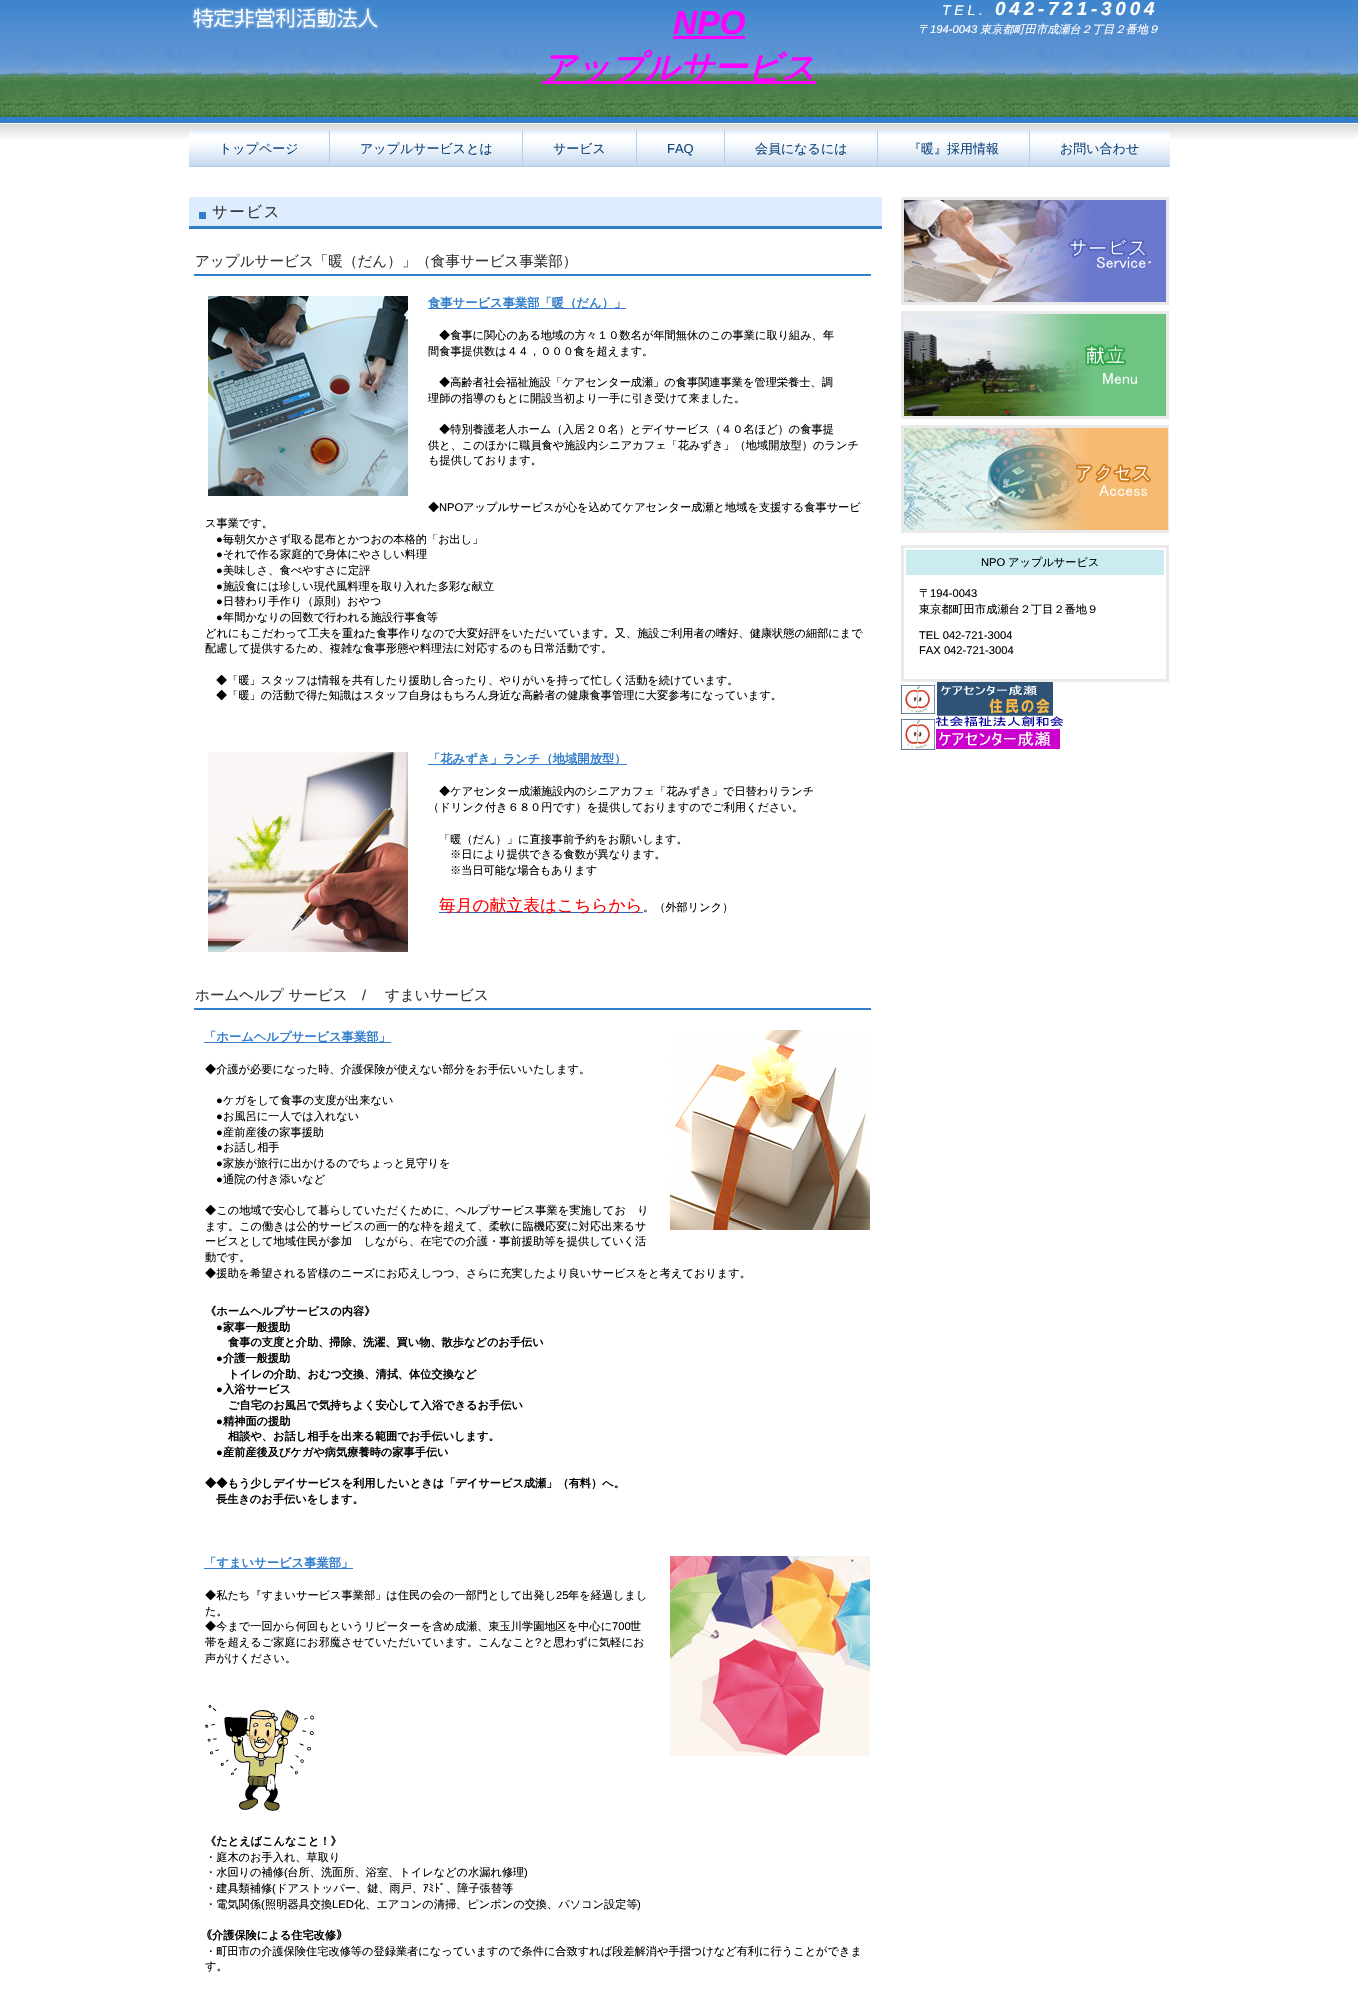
void draw(SkCanvas* canvas) {
	SkPaint fill;
	fill.setAntiAlias(true);
	auto makeFont = [&](const char* family, int weight, float size, bool italic = false) {
		SkFontStyle style(weight, SkFontStyle::kNormal_Width,
			italic ? SkFontStyle::kItalic_Slant : SkFontStyle::kUpright_Slant);
		SkFont result(fontMgr->matchFamilyStyle(family, style), size);
		result.setSubpixel(true);
		return result;
	};
	auto text = [&](const char* s, float x, float y, const SkFont& font) {
		canvas->drawString(s, x, y, font, fill);
	};
	auto spacedText = [&](const char* s, float x, float y, const SkFont& font, const SkPaint& ink, float letter, float word) {
		std::vector<SkGlyphID> glyphs(font.countText(s, strlen(s), SkTextEncoding::kUTF8));
		std::vector<float> xs(glyphs.size());
		font.textToGlyphs(s, strlen(s), SkTextEncoding::kUTF8, glyphs);
		font.getXPos(glyphs, xs, x);
		float extra = 0;
		for (size_t i = 0; i < glyphs.size(); i++) {
			xs[i] += extra;
			extra += letter + word * (glyphs[i] == font.unicharToGlyph(' '));
		}
		canvas->drawTextBlob(SkTextBlob::MakeFromPosHGlyphs(glyphs, xs, y, font), 0, 0, ink);
	};
	auto box = [&](float l, float t, float r, float b) {
		canvas->drawRect(SkRect::MakeLTRB(l, t, r, b), fill);
	};
	auto picture = [&](const char* path, float l, float t, float r, float b) {
		auto image = SkImages::DeferredFromEncodedData(SkData::MakeFromFileName(path));
		canvas->drawImageRect(image, SkRect::MakeLTRB(l, t, r, b), SkSamplingOptions());
	};
	canvas->clear(0xFFFFFFFF);
	picture("image0.png", 0, 0, 1358, 139);
	picture("image1.png", 191, 6, 380, 30);
	fill.setColor(0xFFFF00FF);
	box(673, 36, 745, 39);
	box(542, 81, 816, 84);
	picture("image2.png", 189, 130, 329, 167);
	fill.setColor(0xFFB0CFF3);
	box(329, 130, 330, 167);
	picture("image3.png", 330, 130, 522, 167);
	box(522, 130, 523, 167);
	picture("image4.png", 523, 130, 636, 167);
	box(636, 130, 637, 167);
	picture("image5.png", 637, 130, 724, 167);
	box(724, 130, 725, 167);
	picture("image6.png", 725, 130, 877, 167);
	box(877, 130, 878, 167);
	picture("image7.png", 878, 130, 1029, 167);
	box(1029, 130, 1030, 167);
	picture("image2.png", 1030, 130, 1170, 167);
	fill.setColor(0xFFDDEDFD);
	box(189, 197, 882, 226);
	fill.setColor(0xFF327ECC);
	box(199, 212, 206, 219);
	box(189, 226, 882, 229);
	box(194, 274, 871, 276);
	picture("image8.png", 208, 296, 408, 496);
	box(428, 308, 626, 309);
	picture("image9.png", 208, 752, 408, 952);
	box(428, 764, 627, 765);
	fill.setColor(0xFF3366CC);
	box(439, 912, 643, 913);
	fill.setColor(0xFF327ECC);
	box(194, 1008, 871, 1010);
	box(204, 1042, 391, 1043);
	picture("image10.png", 670, 1030, 870, 1230);
	box(204, 1568, 353, 1569);
	picture("image11.png", 670, 1556, 870, 1756);
	picture("image12.png", 205, 1704, 314, 1811);
	picture("image13.png", 901, 197, 1169, 305);
	picture("image14.png", 901, 311, 1169, 419);
	picture("image15.png", 901, 425, 1169, 533);
	fill.setStyle(SkPaint::kStroke_Style);
	fill.setStrokeWidth(3);
	fill.setColor(0xFFEAEAEA);
	canvas->drawRect(SkRect::MakeLTRB(902.5f, 546.5f, 1167.5f, 680.5f), fill);
	fill.setStyle(SkPaint::kFill_Style);
	fill.setColor(0xFFCAECF0);
	box(906, 550, 1164, 575);
	picture("image16.png", 901, 682, 1053, 716);
	picture("image17.png", 901, 716, 1063, 750);
	auto font1 = makeFont("Liberation Sans", 700, 33.5f, true);
	fill.setColor(0xFFFF00FF);
	text("NPO", 673, 34, font1);
	auto font2 = makeFont("Liberation Sans", 400, 14, true);
	fill.setColor(0xFFFFFFFF);
	spacedText("TEL.", 942, 15, font2, fill, 3.75f, 0);
	auto font3 = makeFont("Liberation Sans", 700, 19, true);
	spacedText("042-721-3004", 995, 15, font3, fill, 3.75f, 0);
	auto font4 = makeFont("WenQuanYi Zen Hei", 500, 11.2f, true);
	text("〒", 918, 33, font4);
	auto font5 = makeFont("Liberation Sans", 400, 11.2f, true);
	text("194-0043", 930, 33, font5);
	text("東京都町田市成瀬台２丁目２番地９", 980, 33, font4);
	auto font6 = makeFont("WenQuanYi Zen Hei", 700, 33.5f, true);
	fill.setColor(0xFFFF00FF);
	text("アップルサービス", 542, 79, font6);
	auto font7 = makeFont("WenQuanYi Zen Hei", 500, 13);
	fill.setColor(0xFF10457C);
	text("トップページ", 219, 153, font7);
	text("アップルサービスとは", 360, 153, font7);
	text("サービス", 553, 153, font7);
	auto font8 = makeFont("Liberation Sans", 400, 13);
	text("FAQ", 667, 153, font8);
	text("会員になるには", 755, 153, font7);
	text("『暖』採用情報", 908, 153, font7);
	text("お問い合わせ", 1060, 153, font7);
	auto font9 = makeFont("WenQuanYi Zen Hei", 500, 15.5f);
	fill.setColor(0xFF333333);
	spacedText("サービス", 212, 217, font9, fill, 1.5f, 0);
	auto font10 = makeFont("WenQuanYi Zen Hei", 500, 14.55f);
	text("アップルサービス「暖（だん）」（食事サービス事業部）", 195, 266, font10);
	auto font11 = makeFont("WenQuanYi Zen Hei", 700, 12.3f);
	fill.setColor(0xFF327ECC);
	text("食事サービス事業部「暖（だん）」", 428, 307, font11);
	auto font12 = makeFont("WenQuanYi Zen Hei", 500, 11.2f);
	fill.setColor(0xFF000000);
	text("◆食事に関心のある地域の方々１０数名が年間無休のこの事業に取り組み、年", 439, 339, font12);
	text("間食事提供数は４４，０００食を超えます。", 428, 355, font12);
	text("◆高齢者社会福祉施設「ケアセンター成瀬」の食事関連事業を管理栄養士、調", 439, 386, font12);
	text("理師の指導のもとに開設当初より一手に引き受けて来ました。", 428, 402, font12);
	text("◆特別養護老人ホーム（入居２０名）とデイサービス（４０名ほど）の食事提", 439, 433, font12);
	text("供と、このほかに職員食や施設内シニアカフェ「花みずき」（地域開放型）のランチ", 428, 449, font12);
	text("も提供しております。", 428, 464, font12);
	text("◆", 428, 511, font12);
	auto font13 = makeFont("Liberation Sans", 400, 11.2f);
	text("NPO", 439, 511, font13);
	text("アップルサービスが心を込めてケアセンター成瀬と地域を支援する食事サービ", 463, 511, font12);
	text("ス事業です。", 205, 527, font12);
	text("●", 216, 543, font13);
	text("毎朝欠かさず取る昆布とかつおの本格的「お出し」", 223, 543, font12);
	text("●", 216, 558, font13);
	text("それで作る家庭的で身体にやさしい料理", 223, 558, font12);
	text("●", 216, 574, font13);
	text("美味しさ、食べやすさに定評", 223, 574, font12);
	text("●", 216, 590, font13);
	text("施設食には珍しい現代風料理を取り入れた多彩な献立", 223, 590, font12);
	text("●", 216, 605, font13);
	text("日替わり手作り（原則）おやつ", 223, 605, font12);
	text("●", 216, 621, font13);
	text("年間かなりの回数で行われる施設行事食等", 223, 621, font12);
	text("どれにもこだわって工夫を重ねた食事作りなので大変好評をいただいています。又、施設ご利用者の嗜好、健康状態の細部にまで", 205, 637, font12);
	text("配慮して提供するため、複雑な食事形態や料理法に対応するのも日常活動です。", 205, 652, font12);
	text("◆「暖」スタッフは情報を共有したり援助し合ったり、やりがいを持って忙しく活動を続けています。", 216, 684, font12);
	text("◆「暖」の活動で得た知識はスタッフ自身はもちろん身近な高齢者の健康食事管理に大変参考になっています。", 216, 699, font12);
	fill.setColor(0xFF327ECC);
	text("「花みずき」ランチ（地域開放型）", 428, 763, font11);
	fill.setColor(0xFF000000);
	text("◆ケアセンター成瀬施設内のシニアカフェ「花みずき」で日替わりランチ", 439, 795, font12);
	text("（ドリンク付き６８０円です）を提供しておりますのでご利用ください。", 428, 811, font12);
	text("「暖（だん）」に直接事前予約をお願いします。", 439, 843, font12);
	text("※日により提供できる食数が異なります。", 450, 858, font12);
	text("※当日可能な場合もあります", 450, 874, font12);
	auto font14 = makeFont("WenQuanYi Zen Hei", 500, 16.75f);
	fill.setColor(0xFFFF0000);
	text("毎月の献立表はこちらから", 439, 911, font14);
	fill.setColor(0xFF000000);
	text("。（外部リンク）", 643, 911, font12);
	fill.setColor(0xFF333333);
	text("ホームヘルプ サービス", 195, 1000, font10);
	auto font15 = makeFont("Liberation Sans", 400, 14.55f);
	text("/", 362, 1000, font15);
	text("すまいサービス", 385, 1000, font10);
	fill.setColor(0xFF327ECC);
	text("「ホームヘルプサービス事業部」", 204, 1041, font11);
	fill.setColor(0xFF000000);
	text("◆介護が必要になった時、介護保険が使えない部分をお手伝いいたします。", 205, 1073, font12);
	text("●", 216, 1104, font13);
	text("ケガをして食事の支度が出来ない", 223, 1104, font12);
	text("●", 216, 1120, font13);
	text("お風呂に一人では入れない", 223, 1120, font12);
	text("●", 216, 1136, font13);
	text("産前産後の家事援助", 223, 1136, font12);
	text("●", 216, 1151, font13);
	text("お話し相手", 223, 1151, font12);
	text("●", 216, 1167, font13);
	text("家族が旅行に出かけるのでちょっと見守りを", 223, 1167, font12);
	text("●", 216, 1183, font13);
	text("通院の付き添いなど", 223, 1183, font12);
	text("◆この地域で安心して暮らしていただくために、ヘルプサービス事業を実施してお　り", 205, 1214, font12);
	text("ます。この働きは公的サービスの画一的な枠を超えて、柔軟に臨機応変に対応出来るサ", 205, 1230, font12);
	text("ービスとして地域住民が参加　しながら、在宅での介護・事前援助等を提供していく活", 205, 1245, font12);
	text("動です。", 205, 1261, font12);
	text("◆援助を希望される皆様のニーズにお応えしつつ、さらに充実したより良いサービスをと考えております。", 205, 1277, font12);
	auto font16 = makeFont("WenQuanYi Zen Hei", 700, 11.2f);
	text("《ホームヘルプサービスの内容》", 205, 1315, font16);
	auto font17 = makeFont("Liberation Sans", 700, 11.2f);
	text("●", 216, 1331, font17);
	text("家事一般援助", 223, 1331, font16);
	text("食事の支度と介助、掃除、洗濯、買い物、散歩などのお手伝い", 228, 1346, font16);
	text("●", 216, 1362, font17);
	text("介護一般援助", 223, 1362, font16);
	text("トイレの介助、おむつ交換、清拭、体位交換など", 228, 1378, font16);
	text("●", 216, 1393, font17);
	text("入浴サービス", 223, 1393, font16);
	text("ご自宅のお風呂で気持ちよく安心して入浴できるお手伝い", 228, 1409, font16);
	text("●", 216, 1425, font17);
	text("精神面の援助", 223, 1425, font16);
	text("相談や、お話し相手を出来る範囲でお手伝いします。", 228, 1440, font16);
	text("●", 216, 1456, font17);
	text("産前産後及びケガや病気療養時の家事手伝い", 223, 1456, font16);
	text("◆◆もう少しデイサービスを利用したいときは「デイサービス成瀬」（有料）へ。", 205, 1487, font16);
	text("長生きのお手伝いをします。", 216, 1503, font16);
	fill.setColor(0xFF327ECC);
	text("「すまいサービス事業部」", 204, 1567, font11);
	fill.setColor(0xFF000000);
	text("◆私たち『すまいサービス事業部」は住民の会の一部門として出発し", 205, 1599, font12);
	text("25", 556, 1599, font13);
	text("年を経過しまし", 568, 1599, font12);
	text("た。", 205, 1615, font12);
	text("◆今まで一回から何回もというリピーターを含め成瀬、東玉川学園地区を中心に", 205, 1630, font12);
	text("700", 612, 1630, font13);
	text("世", 630, 1630, font12);
	text("帯を超えるご家庭にお邪魔させていただいています。こんなこと", 205, 1646, font12);
	text("?", 535, 1646, font13);
	text("と思わずに気軽にお", 542, 1646, font12);
	text("声がけください。", 205, 1662, font12);
	text("《たとえばこんなこと！》", 205, 1845, font16);
	text("・庭木のお手入れ、草取り", 205, 1861, font12);
	text("・水回りの補修 台所、洗面所、浴室、トイレなどの水漏れ修理", 205, 1876, font12);
	text("(", 284, 1876, font13);
	text(")", 524, 1876, font13);
	text("・建具類補修", 205, 1892, font12);
	text("(", 272, 1892, font13);
	text("ドアストッパー、鍵、雨戸、", 276, 1892, font12);
	auto font18 = makeFont("IPAPGothic", 400, 11.2f);
	text("ｱﾐﾄﾞ", 423, 1892, font18);
	text("、障子張替等", 446, 1892, font12);
	text(")", 507, 1892, font13);
	text("・電気関係", 205, 1908, font12);
	text("(", 261, 1908, font13);
	text("照明器具交換", 265, 1908, font12);
	text("LED", 332, 1908, font13);
	text("化、エアコンの清掃、ピンポンの交換、パソコン設定等", 354, 1908, font12);
	text(")", 637, 1908, font13);
	auto font19 = makeFont("IPAPGothic", 700, 11.2f);
	text("｟", 205, 1939, font19);
	text("介護保険による住宅改修", 212, 1939, font16);
	text("｠", 336, 1939, font19);
	text("・町田市の介護保険住宅改修等の登録業者になっていますので条件に合致すれば段差解消や手摺つけなど有利に行うことができま", 205, 1955, font12);
	text("す。", 205, 1970, font12);
	text("NPO", 981, 566, font13);
	text("アップルサービス", 1008, 566, font12);
	text("〒", 919, 597, font12);
	text("194-0043", 930, 597, font13);
	text("東京都町田市成瀬台２丁目２番地９", 919, 613, font12);
	text("TEL 042-721-3004", 919, 639, font13);
	text("FAX 042-721-3004", 919, 654, font13);
}
